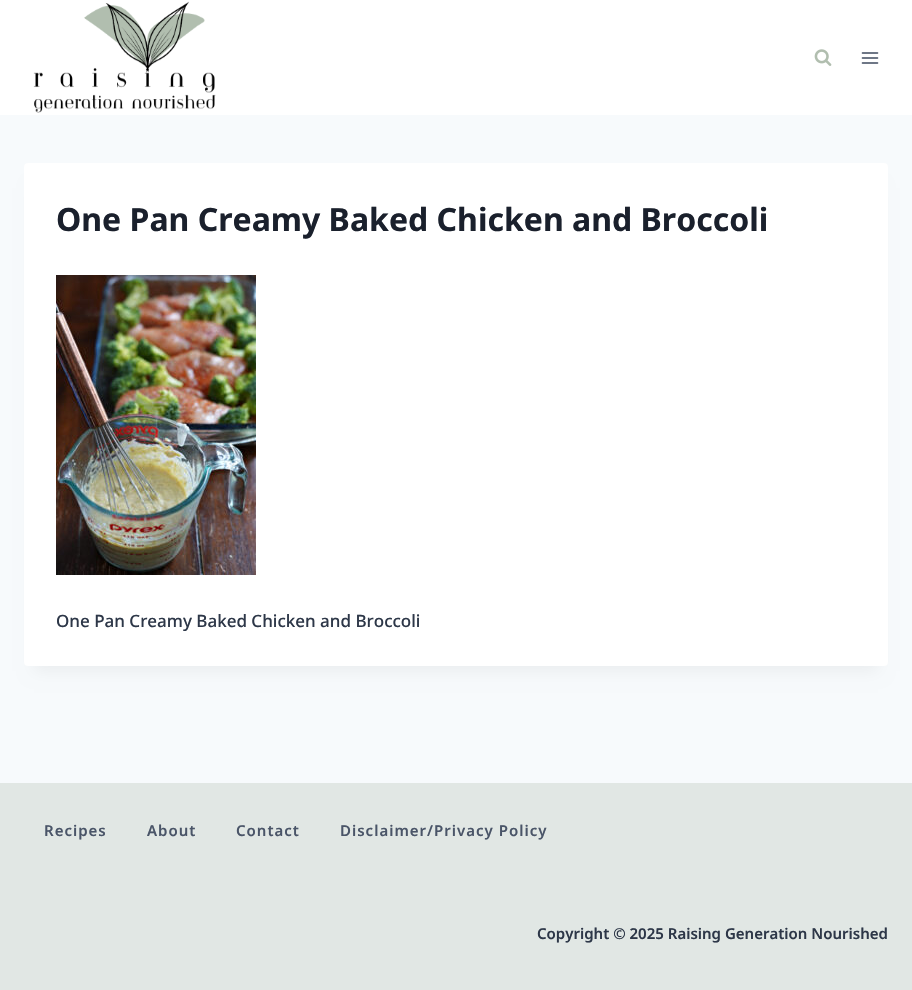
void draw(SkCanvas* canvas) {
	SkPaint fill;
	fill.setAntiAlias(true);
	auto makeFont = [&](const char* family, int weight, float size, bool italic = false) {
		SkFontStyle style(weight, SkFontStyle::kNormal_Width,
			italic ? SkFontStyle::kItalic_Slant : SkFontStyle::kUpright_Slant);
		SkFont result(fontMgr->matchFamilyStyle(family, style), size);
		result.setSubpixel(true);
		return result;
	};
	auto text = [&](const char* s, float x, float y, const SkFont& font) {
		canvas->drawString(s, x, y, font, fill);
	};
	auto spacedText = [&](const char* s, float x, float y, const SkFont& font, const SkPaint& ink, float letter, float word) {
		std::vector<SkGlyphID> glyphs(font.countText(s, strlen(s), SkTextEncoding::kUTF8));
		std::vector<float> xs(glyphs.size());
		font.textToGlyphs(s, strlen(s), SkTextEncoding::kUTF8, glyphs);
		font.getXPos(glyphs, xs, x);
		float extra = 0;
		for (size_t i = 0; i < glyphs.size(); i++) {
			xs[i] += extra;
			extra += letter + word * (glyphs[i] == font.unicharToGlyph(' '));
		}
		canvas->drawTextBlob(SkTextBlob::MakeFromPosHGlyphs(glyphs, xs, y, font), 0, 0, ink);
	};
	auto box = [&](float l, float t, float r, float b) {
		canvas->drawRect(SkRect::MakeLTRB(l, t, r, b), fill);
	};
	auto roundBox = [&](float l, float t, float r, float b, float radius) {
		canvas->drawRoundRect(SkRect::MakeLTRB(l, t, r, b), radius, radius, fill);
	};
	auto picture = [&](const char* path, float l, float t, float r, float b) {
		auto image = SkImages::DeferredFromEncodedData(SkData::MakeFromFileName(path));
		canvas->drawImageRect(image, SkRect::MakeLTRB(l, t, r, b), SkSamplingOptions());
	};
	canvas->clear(0xFFF7FAFC);
	fill.setColor(0xFFFFFFFF);
	box(0, 0, 912, 115);
	picture("image0.png", 33, 1, 216, 113);
	picture("image1.png", 814, 49, 832, 66);
	picture("image2.png", 861, 52, 879, 64);
	fill.setColor(0x0D000000);
	fill.setMaskFilter(SkMaskFilter::MakeBlur(kNormal_SkBlurStyle, 7.5f));
	canvas->drawRect(SkRect::MakeLTRB(34, 188, 878, 671), fill);
	fill.setMaskFilter(nullptr);
	fill.setColor(0xFFFFFFFF);
	roundBox(24, 163, 888, 666, 4);
	picture("image3.png", 56, 275, 256, 575);
	fill.setColor(0xFFE1E7E4);
	box(0, 783, 912, 990);
	auto font1 = makeFont("Noto Sans", 700, 32);
	fill.setColor(0xFF1A202C);
	text("One Pan Creamy Baked Chicken and Broccoli", 56, 231, font1);
	auto font2 = makeFont("Noto Sans", 500, 17);
	fill.setColor(0xFF2D3748);
	text("One Pan Creamy Baked Chicken and Broccoli", 56, 627, font2);
	auto font3 = makeFont("Noto Sans", 600, 15);
	fill.setColor(0xFF4A5568);
	spacedText("Recipes", 44, 836, font3, fill, 1, 0);
	spacedText("About", 147, 836, font3, fill, 1, 0);
	spacedText("Contact", 236, 836, font3, fill, 1, 0);
	spacedText("Disclaimer/Privacy Policy", 340, 836, font3, fill, 1, 0);
	fill.setColor(0xFF2D3748);
	text("Copyright © 2025 Raising Generation Nourished", 537, 939, font3);
}
